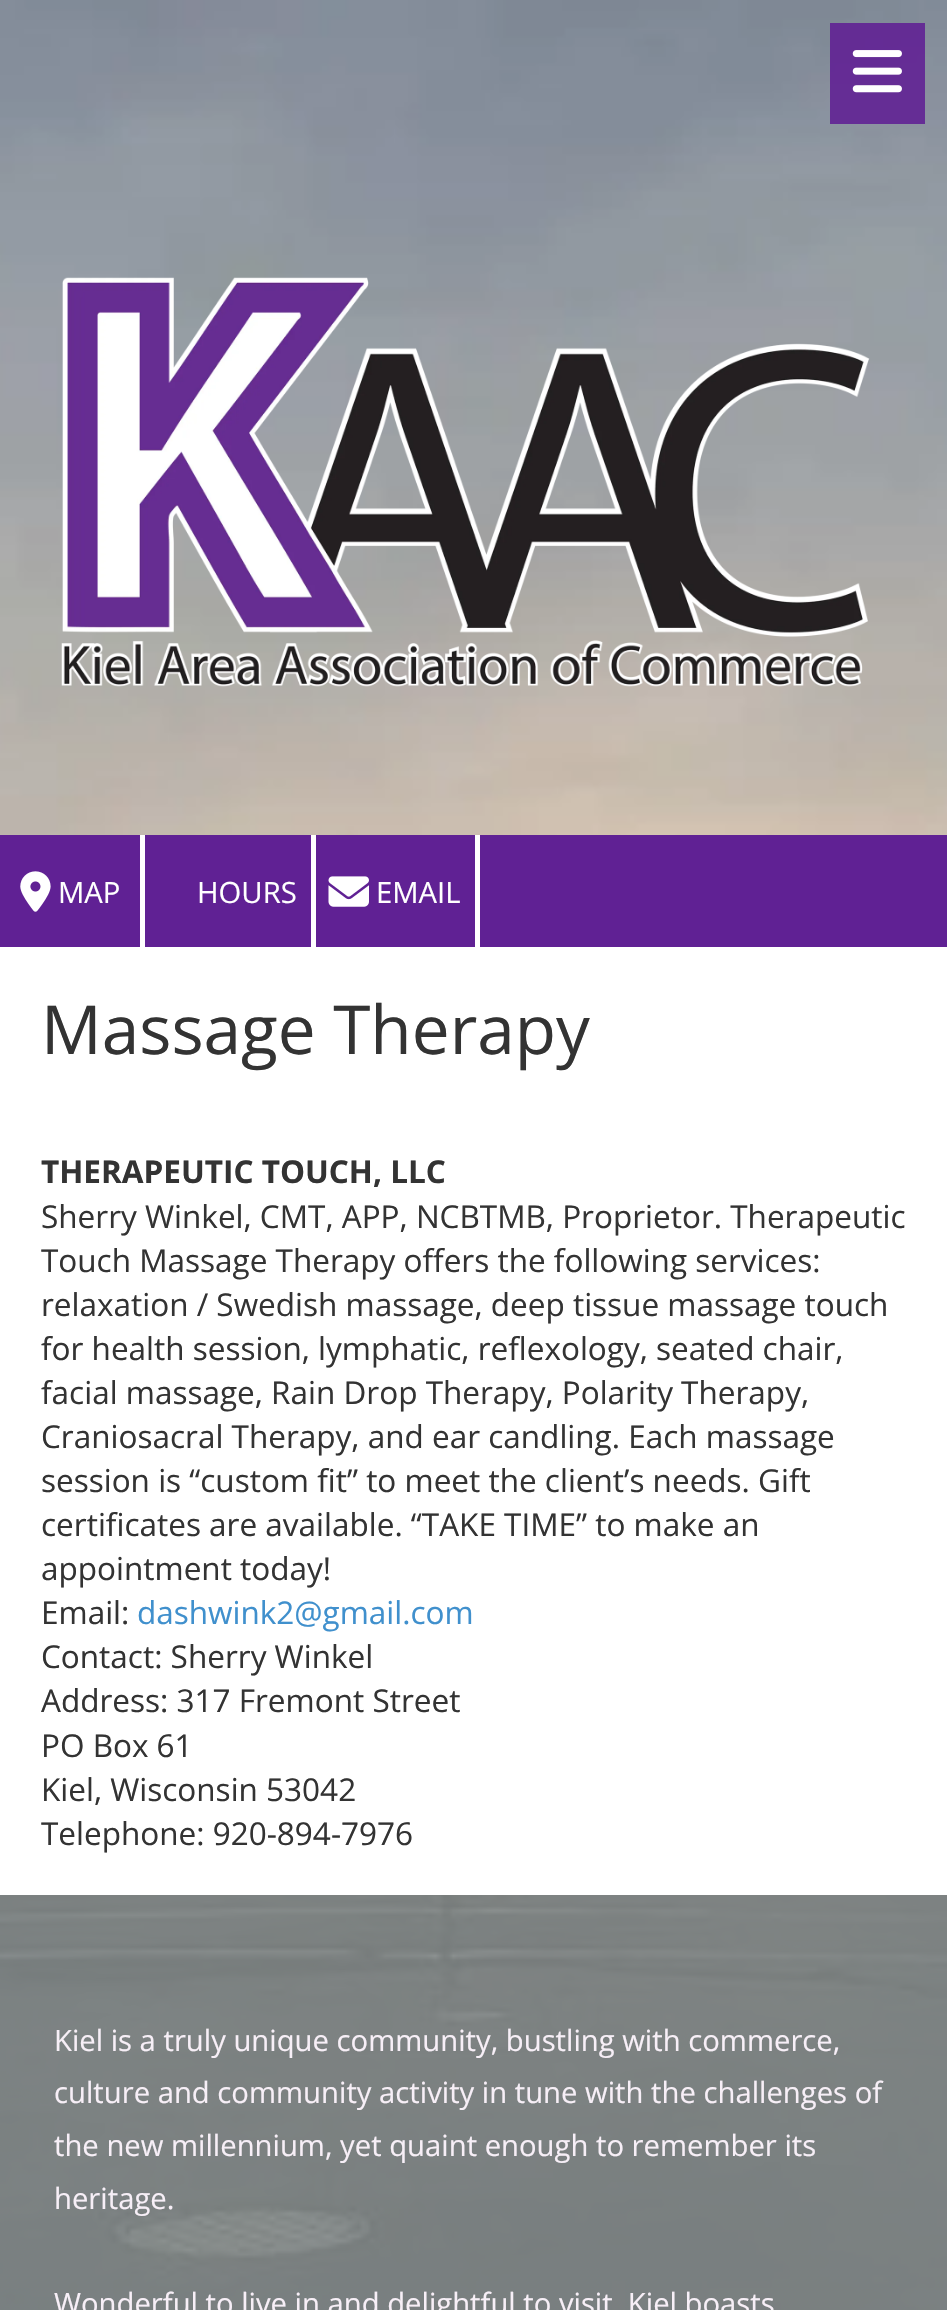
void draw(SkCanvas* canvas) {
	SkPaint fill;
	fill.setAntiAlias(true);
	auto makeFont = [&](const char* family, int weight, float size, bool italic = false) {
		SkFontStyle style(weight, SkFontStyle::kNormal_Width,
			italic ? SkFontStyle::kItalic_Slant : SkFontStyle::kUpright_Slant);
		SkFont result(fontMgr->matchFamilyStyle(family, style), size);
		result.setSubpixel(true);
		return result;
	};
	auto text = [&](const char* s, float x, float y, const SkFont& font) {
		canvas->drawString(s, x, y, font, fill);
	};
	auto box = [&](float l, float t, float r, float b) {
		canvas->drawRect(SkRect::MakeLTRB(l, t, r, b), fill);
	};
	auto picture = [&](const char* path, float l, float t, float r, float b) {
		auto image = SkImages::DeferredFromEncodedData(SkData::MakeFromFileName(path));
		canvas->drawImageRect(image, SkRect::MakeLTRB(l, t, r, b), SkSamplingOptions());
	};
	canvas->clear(0xFFFFFFFF);
	picture("image0.png", 0, 0, 947, 2310);
	fill.setColor(0xE6602194);
	box(830, 23, 925, 124);
	picture("image1.png", 852, 50, 902, 93);
	picture("image2.png", 61, 277, 870, 687);
	fill.setColor(0xFF602194);
	box(0, 835, 947, 947);
	fill.setColor(0xFFFFFFFF);
	box(140, 835, 145, 947);
	picture("image3.png", 20, 871, 51, 912);
	box(311, 835, 316, 947);
	box(475, 835, 480, 947);
	picture("image4.png", 328, 876, 369, 907);
	box(0, 947, 947, 1895);
	fill.setColor(0xE3838A8A);
	box(0, 1895, 947, 2310);
	auto font1 = makeFont("Open Sans", 400, 29.25f);
	fill.setColor(0xFFFFFFFF);
	text("MAP", 58, 903, font1);
	text("HOURS", 197, 903, font1);
	text("EMAIL", 376, 903, font1);
	auto font2 = makeFont("Open Sans", 400, 67.5f);
	fill.setColor(0xFF333333);
	text("Massage Therapy", 41, 1054, font2);
	auto font3 = makeFont("Open Sans", 700, 31.5f);
	text("THERAPEUTIC TOUCH, LLC", 41, 1183, font3);
	auto font4 = makeFont("Open Sans", 400, 31.5f);
	text("Sherry Winkel, CMT, APP, NCBTMB, Proprietor. Therapeutic", 41, 1228, font4);
	text("Touch Massage Therapy offers the following services:", 41, 1272, font4);
	text("relaxation / Swedish massage, deep tissue massage touch", 41, 1316, font4);
	text("for health session, lymphatic, reflexology, seated chair,", 41, 1360, font4);
	text("facial massage, Rain Drop Therapy, Polarity Therapy,", 41, 1404, font4);
	text("Craniosacral Therapy, and ear candling. Each massage", 41, 1448, font4);
	text("session is “custom fit” to meet the client’s needs. Gift", 41, 1492, font4);
	text("certificates are available. “TAKE TIME” to make an", 41, 1536, font4);
	text("appointment today!", 41, 1580, font4);
	text("Email:", 41, 1624, font4);
	fill.setColor(0xFF4090CD);
	text("dashwink2@gmail.com", 137, 1624, font4);
	fill.setColor(0xFF333333);
	text("Contact: Sherry Winkel", 41, 1668, font4);
	text("Address: 317 Fremont Street", 41, 1712, font4);
	text("PO Box 61", 41, 1757, font4);
	text("Kiel, Wisconsin 53042", 41, 1801, font4);
	text("Telephone: 920-894-7976", 41, 1845, font4);
	fill.setColor(0xFFF7EFF7);
	text("Kiel is a truly unique community, bustling with commerce,", 54, 2051, font1);
	text("culture and community activity in tune with the challenges of", 54, 2103, font1);
	text("the new millennium, yet quaint enough to remember its", 54, 2156, font1);
	text("heritage.", 54, 2209, font1);
	text("Wonderful to live in and delightful to visit, Kiel boasts", 54, 2314, font1);
}
